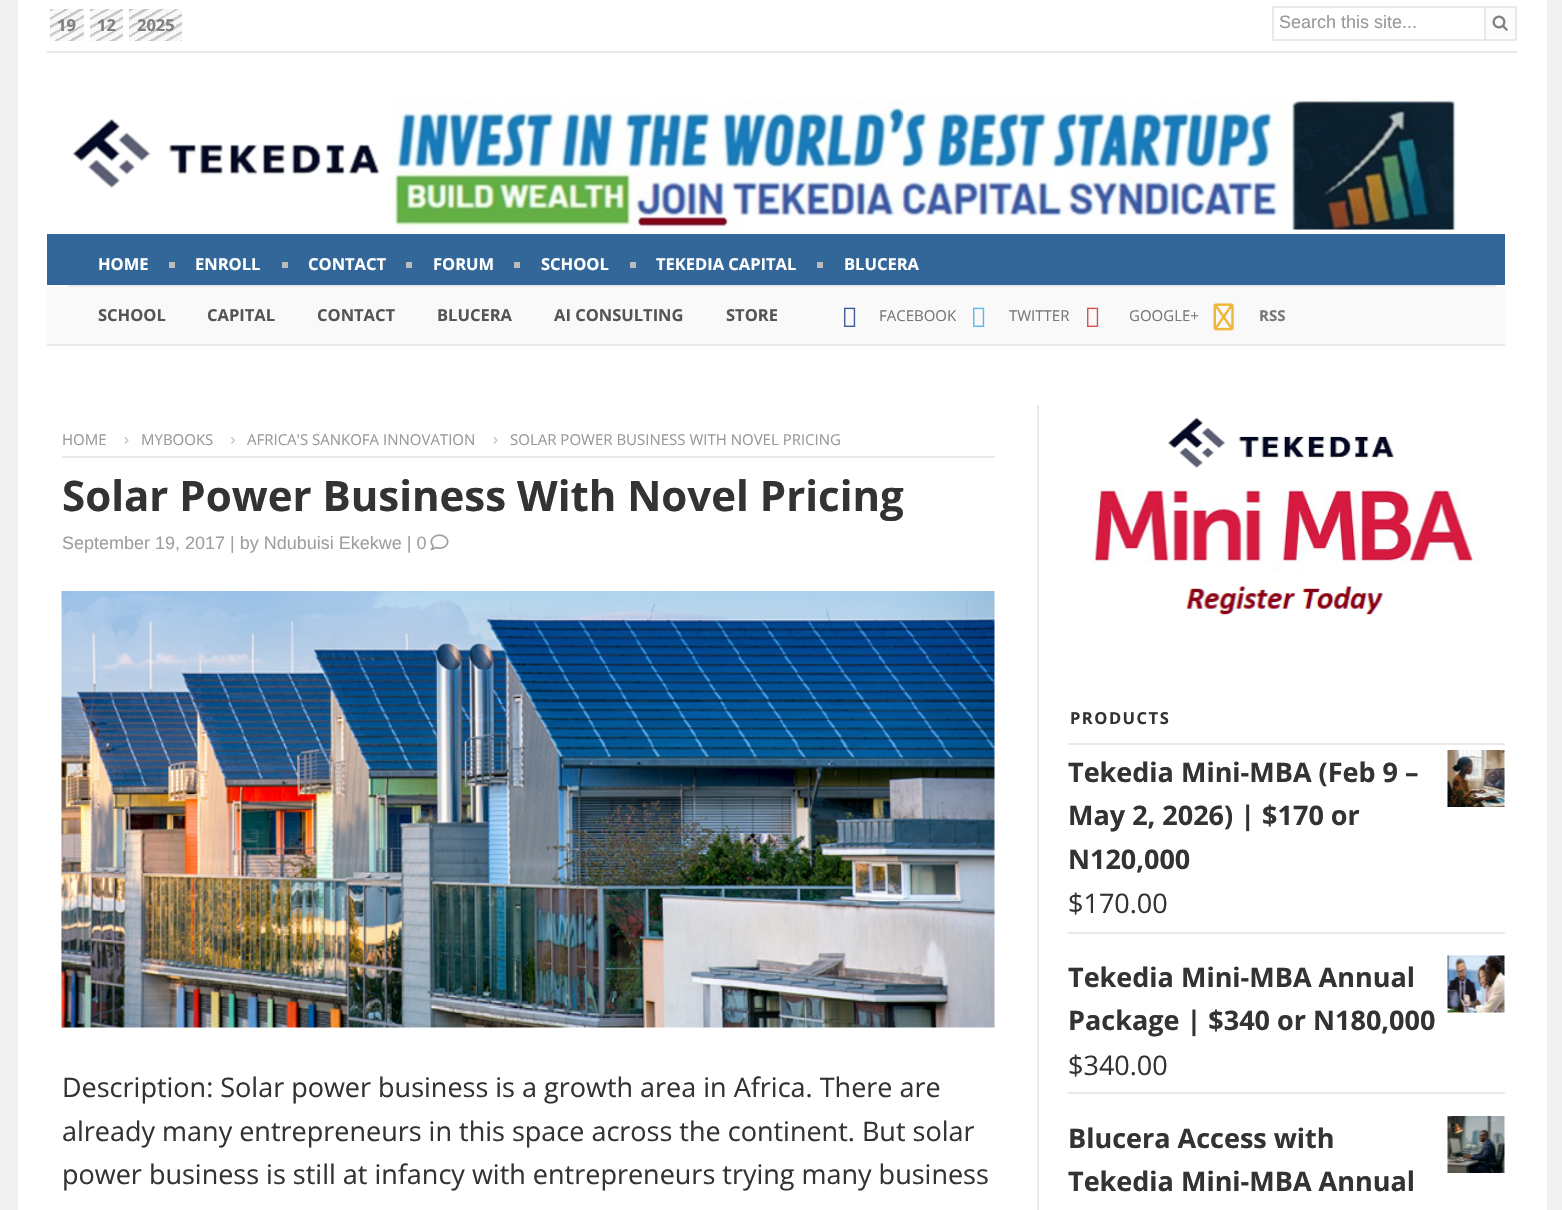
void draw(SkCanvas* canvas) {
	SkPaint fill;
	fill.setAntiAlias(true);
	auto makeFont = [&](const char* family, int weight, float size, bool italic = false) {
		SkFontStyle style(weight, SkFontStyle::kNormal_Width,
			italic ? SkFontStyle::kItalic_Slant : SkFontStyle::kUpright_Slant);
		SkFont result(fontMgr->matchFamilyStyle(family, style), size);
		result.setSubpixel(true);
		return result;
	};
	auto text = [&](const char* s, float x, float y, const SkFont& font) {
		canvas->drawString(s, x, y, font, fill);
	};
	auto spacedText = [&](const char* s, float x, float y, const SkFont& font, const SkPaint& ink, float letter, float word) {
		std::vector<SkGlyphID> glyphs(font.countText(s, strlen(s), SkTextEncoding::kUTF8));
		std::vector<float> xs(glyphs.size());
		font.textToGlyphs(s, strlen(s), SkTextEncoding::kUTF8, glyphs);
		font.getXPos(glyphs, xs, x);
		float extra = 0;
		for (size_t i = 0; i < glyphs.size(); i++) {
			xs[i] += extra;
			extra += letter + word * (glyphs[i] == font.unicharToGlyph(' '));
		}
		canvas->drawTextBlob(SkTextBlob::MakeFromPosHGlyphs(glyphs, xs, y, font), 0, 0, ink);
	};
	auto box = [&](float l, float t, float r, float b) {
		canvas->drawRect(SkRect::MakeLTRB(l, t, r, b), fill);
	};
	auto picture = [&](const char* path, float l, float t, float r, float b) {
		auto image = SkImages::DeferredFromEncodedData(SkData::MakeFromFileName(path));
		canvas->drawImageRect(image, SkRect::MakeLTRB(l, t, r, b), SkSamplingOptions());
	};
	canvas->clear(0xFFF0F0F0);
	fill.setColor(0xFFFFFFFF);
	box(18, 0, 1547, 1210);
	fill.setColor(0xFFE9E9E9);
	box(47, 51, 1517, 53);
	fill.setColor(0xFFF8F8F8);
	box(50, 9, 84, 41);
	{
		const SkColor colors[] = {0x33000000, 0x33000000, 0x00000000, 0x00000000, 0x33000000, 0x33000000, 0x00000000, 0x00000000, 0x33000000, 0x33000000, 0x00000000, 0x00000000, 0x33000000, 0x33000000, 0x00000000, 0x00000000, 0x33000000, 0x33000000, 0x00000000, 0x00000000, 0x33000000, 0x33000000, 0x00000000, 0x00000000};
		const float stops[] = {0, 0.03f, 0.07f, 0.17f, 0.17f, 0.2f, 0.23f, 0.33f, 0.33f, 0.37f, 0.4f, 0.5f, 0.5f, 0.53f, 0.57f, 0.67f, 0.67f, 0.7f, 0.73f, 0.83f, 0.83f, 0.87f, 0.9f, 1};
		const SkPoint ends[] = {{56, 5.5f}, {78, 44}};
		fill.setShader(SkGradientShader::MakeLinear(ends, colors, stops, 24, SkTileMode::kClamp));
		fill.setAlpha(255);
	}
	box(50, 9, 84, 41);
	fill.setShader(nullptr);
	fill.setColor(0xFFF8F8F8);
	box(90, 9, 123, 41);
	{
		const SkColor colors[] = {0x33000000, 0x33000000, 0x00000000, 0x00000000, 0x33000000, 0x33000000, 0x00000000, 0x00000000, 0x33000000, 0x33000000, 0x00000000, 0x00000000, 0x33000000, 0x33000000, 0x00000000, 0x00000000, 0x33000000, 0x33000000, 0x00000000, 0x00000000, 0x33000000, 0x33000000, 0x00000000, 0x00000000};
		const float stops[] = {0, 0.03f, 0.07f, 0.17f, 0.17f, 0.2f, 0.23f, 0.33f, 0.33f, 0.37f, 0.4f, 0.5f, 0.5f, 0.53f, 0.57f, 0.67f, 0.67f, 0.7f, 0.73f, 0.83f, 0.83f, 0.87f, 0.9f, 1};
		const SkPoint ends[] = {{96, 5.8f}, {118, 45}};
		fill.setShader(SkGradientShader::MakeLinear(ends, colors, stops, 24, SkTileMode::kClamp));
		fill.setAlpha(255);
	}
	box(90, 9, 123, 41);
	fill.setShader(nullptr);
	fill.setColor(0xFFF8F8F8);
	box(129, 9, 182, 41);
	{
		const SkColor colors[] = {0x33000000, 0x33000000, 0x00000000, 0x00000000, 0x33000000, 0x33000000, 0x00000000, 0x00000000, 0x33000000, 0x33000000, 0x00000000, 0x00000000, 0x33000000, 0x33000000, 0x00000000, 0x00000000, 0x33000000, 0x33000000, 0x00000000, 0x00000000, 0x33000000, 0x33000000, 0x00000000, 0x00000000, 0x33000000, 0x33000000, 0x00000000, 0x00000000, 0x33000000, 0x33000000, 0x00000000, 0x00000000};
		const float stops[] = {0, 0.03f, 0.05f, 0.12f, 0.12f, 0.15f, 0.18f, 0.25f, 0.25f, 0.28f, 0.3f, 0.38f, 0.38f, 0.4f, 0.42f, 0.5f, 0.5f, 0.53f, 0.55f, 0.62f, 0.62f, 0.65f, 0.68f, 0.75f, 0.75f, 0.77f, 0.8f, 0.88f, 0.88f, 0.9f, 0.92f, 1};
		const SkPoint ends[] = {{142, 1.6f}, {172, 54}};
		fill.setShader(SkGradientShader::MakeLinear(ends, colors, stops, 32, SkTileMode::kClamp));
		fill.setAlpha(255);
	}
	box(129, 9, 182, 41);
	fill.setStyle(SkPaint::kStroke_Style);
	fill.setStrokeWidth(2);
	fill.setShader(nullptr);
	fill.setColor(0xFFE9E9E9);
	canvas->drawRect(SkRect::MakeLTRB(1273, 7, 1516, 40), fill);
	fill.setStyle(SkPaint::kFill_Style);
	fill.setColor(0xFFFCFCFC);
	canvas->drawRect(SkRect::MakeLTRB(1485, 7, 1516, 40), fill);
	fill.setStyle(SkPaint::kStroke_Style);
	fill.setColor(0xFFE9E9E9);
	canvas->drawRect(SkRect::MakeLTRB(1485, 7, 1516, 40), fill);
	picture("image0.png", 1492, 15, 1508, 31);
	fill.setStyle(SkPaint::kFill_Style);
	box(68, 285, 1496, 287);
	picture("image1.png", 72, 119, 380, 189);
	picture("image2.png", 392, 99, 1456, 230);
	fill.setColor(0xFF336699);
	box(47, 234, 1505, 285);
	fill.setColor(0xFFBBBBBB);
	box(169, 262, 175, 268);
	box(282, 262, 288, 268);
	box(406, 262, 412, 268);
	box(514, 262, 520, 268);
	box(630, 262, 636, 268);
	box(817, 262, 823, 268);
	fill.setColor(0xFFE9E9E9);
	box(47, 344, 1505, 346);
	fill.setColor(0xFFF9F9F9);
	box(47, 287, 1505, 344);
	picture("image3.png", 844, 307, 856, 327);
	picture("image4.png", 973, 307, 985, 327);
	picture("image5.png", 1087, 307, 1099, 327);
	picture("image6.png", 1213, 303, 1234, 331);
	fill.setColor(0xFFE9E9E9);
	box(62, 456, 995, 458);
	picture("image7.png", 124, 437, 129, 444);
	picture("image8.png", 231, 437, 235, 444);
	picture("image7.png", 493, 437, 498, 444);
	picture("image9.png", 430, 534, 449, 551);
	picture("image10.png", 61, 591, 995, 1028);
	box(1037, 405, 1039, 1210);
	picture("image11.png", 1093, 418, 1481, 615);
	box(1068, 743, 1505, 745);
	box(1068, 932, 1505, 934);
	picture("image12.png", 1447, 750, 1505, 807);
	box(1068, 1092, 1505, 1094);
	picture("image13.png", 1447, 955, 1505, 1013);
	picture("image14.png", 1447, 1116, 1505, 1173);
	auto font1 = makeFont("Open Sans", 700, 16.5f);
	fill.setColor(0xFF808080);
	text("19", 57, 31, font1);
	text("12", 97, 31, font1);
	text("2025", 137, 31, font1);
	auto font2 = makeFont("Liberation Sans", 400, 18);
	fill.setColor(0xFF999999);
	text("Search this site...", 1279, 28, font2);
	fill.setColor(0xFFFFFFFF);
	text("HOME", 98, 270, font1);
	text("ENROLL", 195, 270, font1);
	text("CONTACT", 308, 270, font1);
	text("FORUM", 433, 270, font1);
	text("SCHOOL", 541, 270, font1);
	text("TEKEDIA CAPITAL", 656, 270, font1);
	text("BLUCERA", 844, 270, font1);
	fill.setColor(0xFF555555);
	text("SCHOOL", 98, 321, font1);
	text("CAPITAL", 207, 321, font1);
	text("CONTACT", 317, 321, font1);
	text("BLUCERA", 437, 321, font1);
	text("AI CONSULTING", 554, 321, font1);
	text("STORE", 726, 321, font1);
	auto font3 = makeFont("Open Sans", 400, 15);
	fill.setColor(0xFF777777);
	text("FACEBOOK", 879, 321, font3);
	text("TWITTER", 1009, 321, font3);
	text("GOOGLE+", 1129, 321, font3);
	auto font4 = makeFont("Open Sans", 700, 15);
	text("RSS", 1259, 321, font4);
	fill.setColor(0xFF999999);
	text("HOME", 62, 445, font3);
	text("MYBOOKS", 141, 445, font3);
	text("AFRICA'S SANKOFA INNOVATION", 247, 445, font3);
	text("SOLAR POWER BUSINESS WITH NOVEL PRICING", 510, 445, font3);
	auto font5 = makeFont("Open Sans", 700, 42);
	fill.setColor(0xFF333333);
	text("Solar Power Business With Novel Pricing", 62, 511, font5);
	fill.setColor(0xFF9F9F9F);
	text("September 19, 2017 | by Ndubuisi Ekekwe | 0", 62, 549, font2);
	auto font6 = makeFont("Open Sans", 400, 27);
	fill.setColor(0xFF333333);
	text("Description: Solar power business is a growth area in Africa. There are", 62, 1097, font6);
	text("already many entrepreneurs in this space across the continent. But solar", 62, 1141, font6);
	text("power business is still at infancy with entrepreneurs trying many business", 62, 1184, font6);
	spacedText("PRODUCTS", 1070, 724, font1, fill, 1.5f, 0);
	auto font7 = makeFont("Open Sans", 700, 27);
	text("Tekedia Mini-MBA (Feb 9 –", 1068, 782, font7);
	text("May 2, 2026) | $170 or", 1068, 825, font7);
	text("N120,000", 1068, 869, font7);
	text("$170.00", 1068, 913, font6);
	text("Tekedia Mini-MBA Annual", 1068, 987, font7);
	text("Package | $340 or N180,000", 1068, 1030, font7);
	text("$340.00", 1068, 1075, font6);
	text("Blucera Access with", 1068, 1148, font7);
	text("Tekedia Mini-MBA Annual", 1068, 1191, font7);
}
